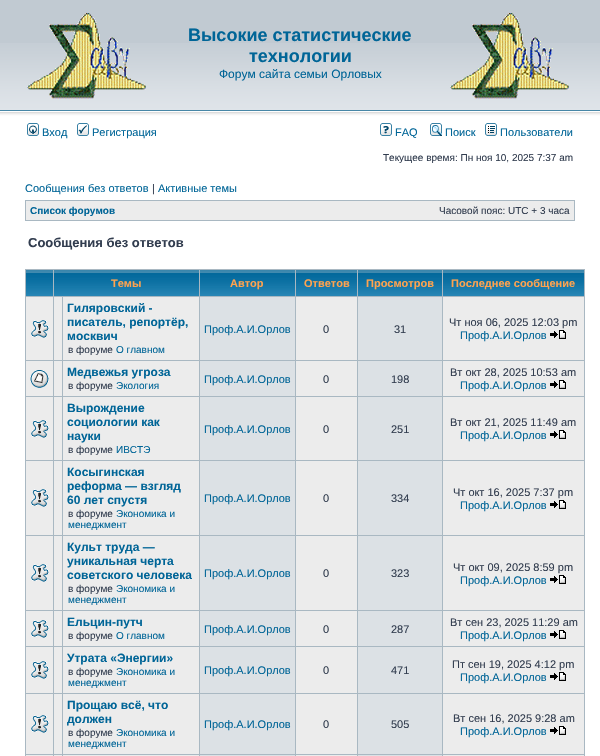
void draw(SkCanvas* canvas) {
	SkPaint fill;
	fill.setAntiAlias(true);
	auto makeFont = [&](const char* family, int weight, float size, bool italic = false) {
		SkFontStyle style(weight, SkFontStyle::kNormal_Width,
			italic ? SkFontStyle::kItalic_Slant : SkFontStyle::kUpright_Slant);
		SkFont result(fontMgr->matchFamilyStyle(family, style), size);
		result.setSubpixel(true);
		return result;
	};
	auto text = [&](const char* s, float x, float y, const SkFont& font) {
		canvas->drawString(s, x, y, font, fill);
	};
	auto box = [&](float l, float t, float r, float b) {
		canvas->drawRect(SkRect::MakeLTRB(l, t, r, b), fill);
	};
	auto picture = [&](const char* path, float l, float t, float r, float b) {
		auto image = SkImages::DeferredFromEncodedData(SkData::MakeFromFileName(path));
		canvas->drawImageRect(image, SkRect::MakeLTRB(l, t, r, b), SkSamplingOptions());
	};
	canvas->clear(0xFFFFFFFF);
	fill.setColor(0xFFC1CAD2);
	box(0, 0, 600, 43);
	picture("image0.png", 0, 43, 600, 121);
	picture("image1.png", 27, 13, 146, 99);
	picture("image1.png", 450, 13, 569, 99);
	picture("image2.png", 27, 123, 39, 136);
	picture("image3.png", 77, 123, 89, 136);
	picture("image4.png", 380, 123, 392, 136);
	picture("image5.png", 430, 123, 442, 136);
	picture("image6.png", 485, 123, 497, 136);
	fill.setColor(0xFFA9B8C2);
	box(25, 200, 575, 221);
	fill.setColor(0xFFECECEC);
	box(26, 201, 574, 220);
	fill.setColor(0xFFA9B8C2);
	box(25, 269, 585, 756);
	picture("image7.png", 26, 270, 53, 296);
	picture("image8.png", 54, 270, 199, 296);
	picture("image9.png", 200, 270, 295, 296);
	picture("image10.png", 296, 270, 357, 296);
	picture("image11.png", 358, 270, 442, 296);
	picture("image12.png", 443, 270, 584, 296);
	fill.setColor(0xFFECECEC);
	box(26, 297, 53, 360);
	picture("image13.png", 31, 320, 49, 338);
	box(54, 297, 62, 360);
	box(63, 297, 199, 360);
	fill.setColor(0xFFDCE1E5);
	box(200, 297, 295, 360);
	fill.setColor(0xFFECECEC);
	box(296, 297, 357, 360);
	fill.setColor(0xFFDCE1E5);
	box(358, 297, 442, 360);
	fill.setColor(0xFFECECEC);
	box(443, 297, 584, 360);
	picture("image14.png", 550, 330, 566, 339);
	box(26, 361, 53, 396);
	picture("image15.png", 30, 370, 49, 388);
	box(54, 361, 62, 396);
	box(63, 361, 199, 396);
	fill.setColor(0xFFDCE1E5);
	box(200, 361, 295, 396);
	fill.setColor(0xFFECECEC);
	box(296, 361, 357, 396);
	fill.setColor(0xFFDCE1E5);
	box(358, 361, 442, 396);
	fill.setColor(0xFFECECEC);
	box(443, 361, 584, 396);
	picture("image14.png", 550, 380, 566, 389);
	box(26, 397, 53, 460);
	picture("image13.png", 31, 420, 49, 438);
	box(54, 397, 62, 460);
	box(63, 397, 199, 460);
	fill.setColor(0xFFDCE1E5);
	box(200, 397, 295, 460);
	fill.setColor(0xFFECECEC);
	box(296, 397, 357, 460);
	fill.setColor(0xFFDCE1E5);
	box(358, 397, 442, 460);
	fill.setColor(0xFFECECEC);
	box(443, 397, 584, 460);
	picture("image14.png", 550, 430, 566, 439);
	box(26, 461, 53, 535);
	picture("image13.png", 31, 489, 49, 507);
	box(54, 461, 62, 535);
	box(63, 461, 199, 535);
	fill.setColor(0xFFDCE1E5);
	box(200, 461, 295, 535);
	fill.setColor(0xFFECECEC);
	box(296, 461, 357, 535);
	fill.setColor(0xFFDCE1E5);
	box(358, 461, 442, 535);
	fill.setColor(0xFFECECEC);
	box(443, 461, 584, 535);
	picture("image14.png", 550, 500, 566, 509);
	box(26, 536, 53, 610);
	picture("image13.png", 31, 564, 49, 582);
	box(54, 536, 62, 610);
	box(63, 536, 199, 610);
	fill.setColor(0xFFDCE1E5);
	box(200, 536, 295, 610);
	fill.setColor(0xFFECECEC);
	box(296, 536, 357, 610);
	fill.setColor(0xFFDCE1E5);
	box(358, 536, 442, 610);
	fill.setColor(0xFFECECEC);
	box(443, 536, 584, 610);
	picture("image14.png", 550, 575, 566, 584);
	box(26, 611, 53, 646);
	picture("image13.png", 31, 620, 49, 638);
	box(54, 611, 62, 646);
	box(63, 611, 199, 646);
	fill.setColor(0xFFDCE1E5);
	box(200, 611, 295, 646);
	fill.setColor(0xFFECECEC);
	box(296, 611, 357, 646);
	fill.setColor(0xFFDCE1E5);
	box(358, 611, 442, 646);
	fill.setColor(0xFFECECEC);
	box(443, 611, 584, 646);
	picture("image14.png", 550, 630, 566, 639);
	box(26, 647, 53, 693);
	picture("image13.png", 31, 661, 49, 679);
	box(54, 647, 62, 693);
	box(63, 647, 199, 693);
	fill.setColor(0xFFDCE1E5);
	box(200, 647, 295, 693);
	fill.setColor(0xFFECECEC);
	box(296, 647, 357, 693);
	fill.setColor(0xFFDCE1E5);
	box(358, 647, 442, 693);
	fill.setColor(0xFFECECEC);
	box(443, 647, 584, 693);
	picture("image14.png", 550, 672, 566, 681);
	box(26, 694, 53, 754);
	picture("image13.png", 31, 715, 49, 733);
	box(54, 694, 62, 754);
	box(63, 694, 199, 754);
	fill.setColor(0xFFDCE1E5);
	box(200, 694, 295, 754);
	fill.setColor(0xFFECECEC);
	box(296, 694, 357, 754);
	fill.setColor(0xFFDCE1E5);
	box(358, 694, 442, 754);
	fill.setColor(0xFFECECEC);
	box(443, 694, 584, 754);
	picture("image14.png", 550, 726, 566, 735);
	box(26, 755, 53, 756);
	box(54, 755, 62, 756);
	box(63, 755, 199, 756);
	fill.setColor(0xFFDCE1E5);
	box(200, 755, 295, 756);
	fill.setColor(0xFFECECEC);
	box(296, 755, 357, 756);
	fill.setColor(0xFFDCE1E5);
	box(358, 755, 442, 756);
	fill.setColor(0xFFECECEC);
	box(443, 755, 584, 756);
	auto font1 = makeFont("Liberation Sans", 700, 18);
	fill.setColor(0xFF006597);
	text("Высокие статистические", 188, 41, font1);
	text("технологии", 249, 62, font1);
	auto font2 = makeFont("Liberation Sans", 400, 12);
	text("Форум сайта семьи Орловых", 219, 78, font2);
	auto font3 = makeFont("Liberation Sans", 400, 11);
	text("Вход", 42, 136, font3);
	text("Регистрация", 92, 136, font3);
	text("FAQ", 395, 136, font3);
	text("Поиск", 445, 136, font3);
	text("Пользователи", 500, 136, font3);
	auto font4 = makeFont("Liberation Sans", 400, 10);
	fill.setColor(0xFF323D4F);
	text("Текущее время: Пн ноя 10, 2025 7:37 am", 383, 161, font4);
	fill.setColor(0xFF006597);
	text("Сообщения без ответов", 25, 192, font3);
	fill.setColor(0xFF323D4F);
	text("|", 152, 192, font3);
	fill.setColor(0xFF006597);
	text("Активные темы", 158, 192, font3);
	auto font5 = makeFont("Liberation Sans", 700, 10);
	text("Список форумов", 30, 214, font5);
	fill.setColor(0xFF323D4F);
	text("Часовой пояс: UTC + 3 часа", 439, 214, font4);
	auto font6 = makeFont("Liberation Sans", 700, 13);
	text("Сообщения без ответов", 28, 247, font6);
	auto font7 = makeFont("Liberation Sans", 700, 11);
	fill.setColor(0xFFFFA34F);
	text("Темы", 111, 287, font7);
	text("Автор", 230, 287, font7);
	text("Ответов", 304, 287, font7);
	text("Просмотров", 366, 287, font7);
	text("Последнее сообщение", 451, 287, font7);
	auto font8 = makeFont("Liberation Sans", 700, 12);
	fill.setColor(0xFF006597);
	text("Гиляровский -", 67, 312, font8);
	text("писатель, репортёр,", 67, 326, font8);
	text("москвич", 67, 340, font8);
	fill.setColor(0xFF323D4F);
	text("в форуме", 68, 353, font4);
	fill.setColor(0xFF006597);
	text("О главном", 116, 353, font4);
	text("Проф.А.И.Орлов", 204, 333, font3);
	fill.setColor(0xFF323D4F);
	text("0", 323, 333, font3);
	text("31", 394, 333, font3);
	text("Чт ноя 06, 2025 12:03 pm", 449, 326, font3);
	fill.setColor(0xFF006597);
	text("Проф.А.И.Орлов", 460, 339, font3);
	text("Медвежья угроза", 67, 376, font8);
	fill.setColor(0xFF323D4F);
	text("в форуме", 68, 389, font4);
	fill.setColor(0xFF006597);
	text("Экология", 116, 389, font4);
	text("Проф.А.И.Орлов", 204, 383, font3);
	fill.setColor(0xFF323D4F);
	text("0", 323, 383, font3);
	text("198", 391, 383, font3);
	text("Вт окт 28, 2025 10:53 am", 450, 376, font3);
	fill.setColor(0xFF006597);
	text("Проф.А.И.Орлов", 460, 389, font3);
	text("Вырождение", 67, 412, font8);
	text("социологии как", 67, 426, font8);
	text("науки", 67, 440, font8);
	fill.setColor(0xFF323D4F);
	text("в форуме", 68, 453, font4);
	fill.setColor(0xFF006597);
	text("ИВСТЭ", 116, 453, font4);
	text("Проф.А.И.Орлов", 204, 433, font3);
	fill.setColor(0xFF323D4F);
	text("0", 323, 433, font3);
	text("251", 391, 433, font3);
	text("Вт окт 21, 2025 11:49 am", 450, 426, font3);
	fill.setColor(0xFF006597);
	text("Проф.А.И.Орлов", 460, 439, font3);
	text("Косыгинская", 67, 476, font8);
	text("реформа — взгляд", 67, 490, font8);
	text("60 лет спустя", 67, 504, font8);
	fill.setColor(0xFF323D4F);
	text("в форуме", 68, 517, font4);
	fill.setColor(0xFF006597);
	text("Экономика и", 116, 517, font4);
	text("менеджмент", 68, 528, font4);
	text("Проф.А.И.Орлов", 204, 502, font3);
	fill.setColor(0xFF323D4F);
	text("0", 323, 502, font3);
	text("334", 391, 502, font3);
	text("Чт окт 16, 2025 7:37 pm", 453, 496, font3);
	fill.setColor(0xFF006597);
	text("Проф.А.И.Орлов", 460, 509, font3);
	text("Культ труда —", 67, 551, font8);
	text("уникальная черта", 67, 565, font8);
	text("советского человека", 67, 579, font8);
	fill.setColor(0xFF323D4F);
	text("в форуме", 68, 592, font4);
	fill.setColor(0xFF006597);
	text("Экономика и", 116, 592, font4);
	text("менеджмент", 68, 603, font4);
	text("Проф.А.И.Орлов", 204, 577, font3);
	fill.setColor(0xFF323D4F);
	text("0", 323, 577, font3);
	text("323", 391, 577, font3);
	text("Чт окт 09, 2025 8:59 pm", 453, 571, font3);
	fill.setColor(0xFF006597);
	text("Проф.А.И.Орлов", 460, 584, font3);
	text("Ельцин-путч", 67, 626, font8);
	fill.setColor(0xFF323D4F);
	text("в форуме", 68, 639, font4);
	fill.setColor(0xFF006597);
	text("О главном", 116, 639, font4);
	text("Проф.А.И.Орлов", 204, 633, font3);
	fill.setColor(0xFF323D4F);
	text("0", 323, 633, font3);
	text("287", 391, 633, font3);
	text("Вт сен 23, 2025 11:29 am", 450, 626, font3);
	fill.setColor(0xFF006597);
	text("Проф.А.И.Орлов", 460, 639, font3);
	text("Утрата «Энергии»", 67, 662, font8);
	fill.setColor(0xFF323D4F);
	text("в форуме", 68, 675, font4);
	fill.setColor(0xFF006597);
	text("Экономика и", 116, 675, font4);
	text("менеджмент", 68, 686, font4);
	text("Проф.А.И.Орлов", 204, 674, font3);
	fill.setColor(0xFF323D4F);
	text("0", 323, 674, font3);
	text("471", 391, 674, font3);
	text("Пт сен 19, 2025 4:12 pm", 452, 668, font3);
	fill.setColor(0xFF006597);
	text("Проф.А.И.Орлов", 460, 681, font3);
	text("Прощаю всё, что", 67, 709, font8);
	text("должен", 67, 723, font8);
	fill.setColor(0xFF323D4F);
	text("в форуме", 68, 736, font4);
	fill.setColor(0xFF006597);
	text("Экономика и", 116, 736, font4);
	text("менеджмент", 68, 747, font4);
	text("Проф.А.И.Орлов", 204, 728, font3);
	fill.setColor(0xFF323D4F);
	text("0", 323, 728, font3);
	text("505", 391, 728, font3);
	text("Вт сен 16, 2025 9:28 am", 453, 722, font3);
	fill.setColor(0xFF006597);
	text("Проф.А.И.Орлов", 460, 735, font3);
}
